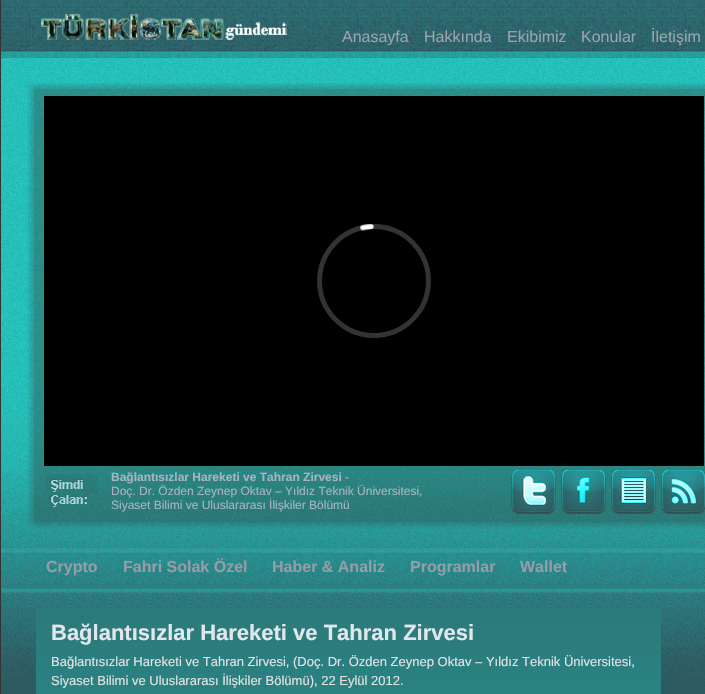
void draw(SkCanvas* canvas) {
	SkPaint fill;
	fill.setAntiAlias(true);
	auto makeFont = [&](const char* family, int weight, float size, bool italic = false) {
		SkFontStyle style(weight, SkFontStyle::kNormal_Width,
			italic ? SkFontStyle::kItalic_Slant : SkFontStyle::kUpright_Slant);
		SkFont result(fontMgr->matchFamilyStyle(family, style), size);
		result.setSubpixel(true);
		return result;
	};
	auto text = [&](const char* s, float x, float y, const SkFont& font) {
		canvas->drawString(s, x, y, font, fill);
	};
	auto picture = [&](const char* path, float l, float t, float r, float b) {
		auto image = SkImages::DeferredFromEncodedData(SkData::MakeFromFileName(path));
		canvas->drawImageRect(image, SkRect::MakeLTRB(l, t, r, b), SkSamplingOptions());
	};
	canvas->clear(0xFF333333);
	picture("image0.png", 1, 0, 705, 58);
	picture("image1.png", 41, 14, 287, 40);
	picture("image2.png", 1, 58, 705, 548);
	picture("image3.png", 27, 83, 705, 529);
	picture("image4.png", 44, 96, 704, 466);
	picture("image5.png", 46, 474, 98, 514);
	picture("image6.png", 511, 470, 556, 514);
	picture("image7.png", 561, 470, 606, 514);
	picture("image8.png", 611, 470, 656, 514);
	picture("image9.png", 661, 470, 705, 514);
	picture("image10.png", 1, 548, 705, 593);
	picture("image11.png", 1, 593, 705, 694);
	picture("image12.png", 36, 608, 661, 694);
	auto font1 = makeFont("Liberation Sans", 400, 16);
	fill.setColor(0xFF9BA3AC);
	text("Anasayfa", 342, 42, font1);
	text("Hakkında", 424, 42, font1);
	text("Ekibimiz", 507, 42, font1);
	text("Konular", 581, 42, font1);
	text("İletişim", 651, 42, font1);
	auto font2 = makeFont("Liberation Sans", 700, 12);
	fill.setColor(0xFFA7B5C0);
	text("Bağlantısızlar Hareketi ve Tahran Zirvesi", 111, 481, font2);
	auto font3 = makeFont("Liberation Sans", 400, 12);
	text("-", 345, 481, font3);
	text("Doç. Dr. Özden Zeynep Oktav – Yıldız Teknik Üniversitesi,", 111, 495, font3);
	text("Siyaset Bilimi ve Uluslararası İlişkiler Bölümü", 111, 509, font3);
	auto font4 = makeFont("Liberation Sans", 700, 16);
	fill.setColor(0xFF959DA7);
	text("Crypto", 46, 572, font4);
	text("Fahri Solak Özel", 123, 572, font4);
	text("Haber & Analiz", 272, 572, font4);
	text("Programlar", 410, 572, font4);
	text("Wallet", 520, 572, font4);
	auto font5 = makeFont("Liberation Sans", 700, 22);
	fill.setColor(0xFFE3E7ED);
	text("Bağlantısızlar Hareketi ve Tahran Zirvesi", 51, 640, font5);
	auto font6 = makeFont("Liberation Sans", 400, 13);
	fill.setColor(0xFFE1E2E3);
	text("Bağlantısızlar Hareketi ve Tahran Zirvesi, (Doç. Dr. Özden Zeynep Oktav – Yıldız Teknik Üniversitesi,", 51, 666, font6);
	text("Siyaset Bilimi ve Uluslararası İlişkiler Bölümü), 22 Eylül 2012.", 51, 685, font6);
}
